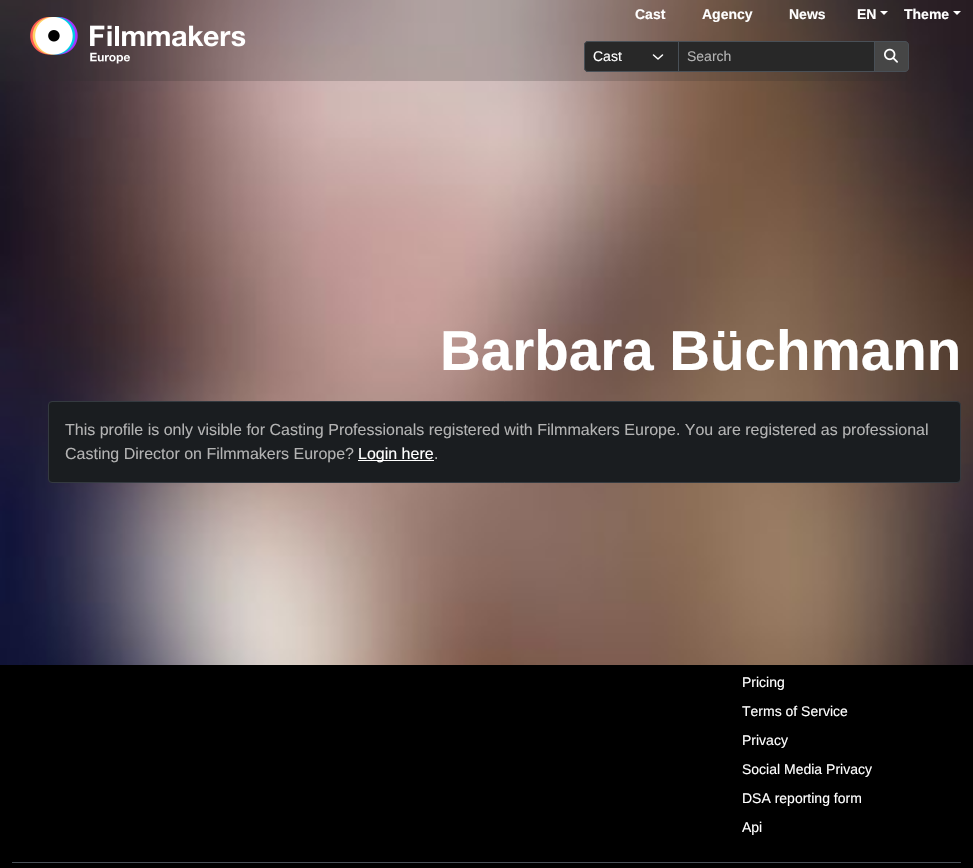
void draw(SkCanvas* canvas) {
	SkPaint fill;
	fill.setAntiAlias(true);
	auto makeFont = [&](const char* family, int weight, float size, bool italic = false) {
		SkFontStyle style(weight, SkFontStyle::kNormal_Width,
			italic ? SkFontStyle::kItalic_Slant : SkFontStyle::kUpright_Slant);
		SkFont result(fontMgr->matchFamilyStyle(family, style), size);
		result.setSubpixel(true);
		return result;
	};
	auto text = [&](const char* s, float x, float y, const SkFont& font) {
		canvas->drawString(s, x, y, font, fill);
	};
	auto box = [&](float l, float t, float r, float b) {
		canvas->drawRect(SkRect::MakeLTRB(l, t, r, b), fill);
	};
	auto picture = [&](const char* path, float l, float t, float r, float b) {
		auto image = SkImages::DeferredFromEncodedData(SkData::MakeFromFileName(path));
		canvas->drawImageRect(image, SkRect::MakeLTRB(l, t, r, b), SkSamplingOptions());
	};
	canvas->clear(0xFF000000);
	picture("image2.png", 0, 0, 973, 665);
	fill.setColor(0x33282828);
	box(0, 0, 907, 81);
	picture("image0.png", 30, 17, 246, 64);
	fill.setColor(0xFFFFFFFF);
	canvas->drawPath(SkPathBuilder().moveTo(880, 11).lineTo(888, 11).lineTo(884, 15).close().detach(), fill);
	canvas->drawPath(SkPathBuilder().moveTo(953, 11).lineTo(961, 11).lineTo(957, 15).close().detach(), fill);
	fill.setColor(0xFF282828);
	canvas->drawPath(SkPathBuilder().moveTo(588, 41).lineTo(679, 41).lineTo(679, 72).lineTo(588, 72).cubicTo(586, 72, 584, 70, 584, 68).lineTo(584, 45).cubicTo(584, 43, 586, 41, 588, 41).close().detach(), fill);
	fill.setStyle(SkPaint::kStroke_Style);
	fill.setStrokeWidth(1.5f);
	fill.setStrokeCap(SkPaint::kRound_Cap);
	fill.setStrokeJoin(SkPaint::kRound_Join);
	fill.setColor(0xFFFFFFFF);
	canvas->drawPath(SkPathBuilder().moveTo(653.5f, 55).lineTo(658, 59).lineTo(662.5f, 55).detach(), fill);
	fill.setStrokeWidth(1);
	fill.setStrokeCap(SkPaint::kButt_Cap);
	fill.setStrokeJoin(SkPaint::kMiter_Join);
	fill.setColor(0xFF495057);
	canvas->drawPath(SkPathBuilder().moveTo(588, 41.5f).lineTo(678.5f, 41.5f).lineTo(678.5f, 71.5f).lineTo(588, 71.5f).cubicTo(586, 71.5f, 584.5f, 70, 584.5f, 68).lineTo(584.5f, 45).cubicTo(584.5f, 43, 586, 41.5f, 588, 41.5f).close().detach(), fill);
	fill.setStyle(SkPaint::kFill_Style);
	fill.setColor(0xFF282828);
	canvas->drawRect(SkRect::MakeLTRB(678.5f, 41.5f, 874.5f, 71.5f), fill);
	fill.setStyle(SkPaint::kStroke_Style);
	fill.setColor(0xFF495057);
	canvas->drawRect(SkRect::MakeLTRB(678.5f, 41.5f, 874.5f, 71.5f), fill);
	fill.setStyle(SkPaint::kFill_Style);
	fill.setColor(0xFF464646);
	canvas->drawPath(SkPathBuilder().moveTo(874.5f, 41.5f).lineTo(905, 41.5f).cubicTo(907, 41.5f, 908.5f, 43, 908.5f, 45).lineTo(908.5f, 68).cubicTo(908.5f, 70, 907, 71.5f, 905, 71.5f).lineTo(874.5f, 71.5f).close().detach(), fill);
	fill.setStyle(SkPaint::kStroke_Style);
	fill.setColor(0xFF495057);
	canvas->drawPath(SkPathBuilder().moveTo(874.5f, 41.5f).lineTo(905, 41.5f).cubicTo(907, 41.5f, 908.5f, 43, 908.5f, 45).lineTo(908.5f, 68).cubicTo(908.5f, 70, 907, 71.5f, 905, 71.5f).lineTo(874.5f, 71.5f).close().detach(), fill);
	picture("image1.png", 884, 48, 898, 63);
	fill.setStyle(SkPaint::kFill_Style);
	fill.setColor(0xFF1A1D20);
	canvas->drawRoundRect(SkRect::MakeLTRB(48.5f, 401.5f, 960.5f, 482.5f), 3.5f, 3.5f, fill);
	fill.setStyle(SkPaint::kStroke_Style);
	fill.setColor(0xFF343A40);
	canvas->drawRoundRect(SkRect::MakeLTRB(48.5f, 401.5f, 960.5f, 482.5f), 3.5f, 3.5f, fill);
	fill.setStyle(SkPaint::kFill_Style);
	fill.setColor(0xFFFFFFFF);
	box(358, 460, 434, 461);
	fill.setColor(0xFF495057);
	box(12, 862, 961, 863);
	auto font1 = makeFont("Liberation Sans", 700, 14);
	fill.setColor(0xFFFFFFFF);
	text("Cast", 635, 19, font1);
	text("Agency", 702, 19, font1);
	text("News", 789, 19, font1);
	text("EN", 857, 19, font1);
	text("Theme", 904, 19, font1);
	auto font2 = makeFont("Liberation Sans", 400, 14);
	text("Cast", 593, 61, font2);
	fill.setColor(0xFFB3B3B3);
	text("Search", 687, 61, font2);
	auto font3 = makeFont("Liberation Sans", 700, 56.5f);
	fill.setColor(0xFFFFFFFF);
	text("Barbara Büchmann", 440, 370, font3);
	auto font4 = makeFont("Liberation Sans", 400, 16);
	fill.setColor(0xFFB3B3B3);
	text("This profile is only visible for Casting Professionals registered with Filmmakers Europe. You are registered as professional", 65, 435, font4);
	text("Casting Director on Filmmakers Europe?", 65, 459, font4);
	fill.setColor(0xFFFFFFFF);
	text("Login here", 358, 459, font4);
	fill.setColor(0xFFB3B3B3);
	text(".", 434, 459, font4);
	fill.setColor(0xFFFFFFFF);
	text("Pricing", 742, 687, font2);
	text("Terms of Service", 742, 716, font2);
	text("Privacy", 742, 745, font2);
	text("Social Media Privacy", 742, 774, font2);
	text("DSA reporting form", 742, 803, font2);
	text("Api", 742, 832, font2);
}
